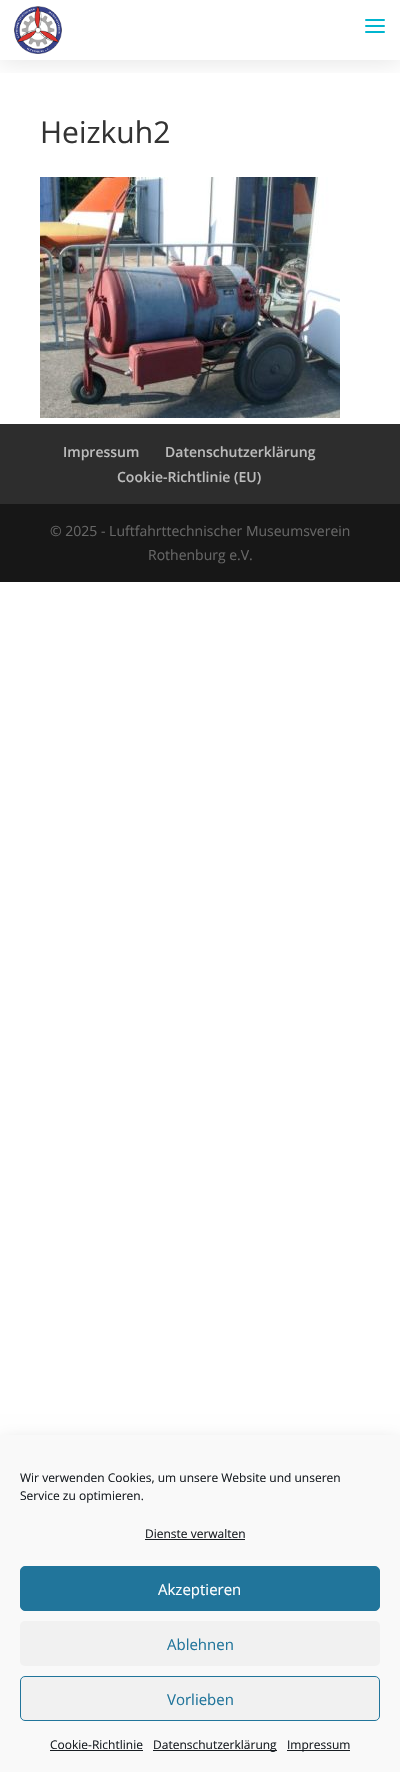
void draw(SkCanvas* canvas) {
	SkPaint fill;
	fill.setAntiAlias(true);
	auto makeFont = [&](const char* family, int weight, float size, bool italic = false) {
		SkFontStyle style(weight, SkFontStyle::kNormal_Width,
			italic ? SkFontStyle::kItalic_Slant : SkFontStyle::kUpright_Slant);
		SkFont result(fontMgr->matchFamilyStyle(family, style), size);
		result.setSubpixel(true);
		return result;
	};
	auto text = [&](const char* s, float x, float y, const SkFont& font) {
		canvas->drawString(s, x, y, font, fill);
	};
	auto box = [&](float l, float t, float r, float b) {
		canvas->drawRect(SkRect::MakeLTRB(l, t, r, b), fill);
	};
	auto roundBox = [&](float l, float t, float r, float b, float radius) {
		canvas->drawRoundRect(SkRect::MakeLTRB(l, t, r, b), radius, radius, fill);
	};
	auto picture = [&](const char* path, float l, float t, float r, float b) {
		auto image = SkImages::DeferredFromEncodedData(SkData::MakeFromFileName(path));
		canvas->drawImageRect(image, SkRect::MakeLTRB(l, t, r, b), SkSamplingOptions());
	};
	canvas->clear(0xFFFFFFFF);
	canvas->save();
	canvas->clipRect(SkRect::MakeLTRB(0, 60, 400, 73));
	fill.setColor(0x1A000000);
	fill.setMaskFilter(SkMaskFilter::MakeBlur(kNormal_SkBlurStyle, 12.5f));
	canvas->drawRect(SkRect::MakeLTRB(0, 2, 400, 62), fill);
	fill.setMaskFilter(nullptr);
	canvas->restore();
	picture("image0.png", 14, 6, 62, 54);
	fill.setColor(0xFF00B5CF);
	roundBox(365, 25, 385, 27, 1);
	roundBox(365, 19, 385, 21, 1);
	roundBox(365, 31, 385, 33, 1);
	picture("image1.png", 40, 177, 340, 418);
	fill.setColor(0xFF2D2D2D);
	box(0, 424, 400, 504);
	fill.setColor(0xFF171717);
	box(0, 504, 400, 582);
	fill.setColor(0x30000000);
	fill.setMaskFilter(SkMaskFilter::MakeBlur(kNormal_SkBlurStyle, 10));
	canvas->drawRect(SkRect::MakeLTRB(0, 1444, 400, 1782), fill);
	fill.setMaskFilter(nullptr);
	fill.setColor(0xFFF9F9F9);
	box(0, 1435, 400, 1772);
	fill.setColor(0xFF191E23);
	box(145, 1539, 245, 1540);
	fill.setColor(0xFF21759B);
	canvas->drawRoundRect(SkRect::MakeLTRB(20.5f, 1566.5f, 379.5f, 1610.5f), 4.5f, 4.5f, fill);
	fill.setStyle(SkPaint::kStroke_Style);
	fill.setStrokeWidth(1);
	canvas->drawRoundRect(SkRect::MakeLTRB(20.5f, 1566.5f, 379.5f, 1610.5f), 4.5f, 4.5f, fill);
	fill.setStyle(SkPaint::kFill_Style);
	fill.setColor(0xFFF1F1F1);
	roundBox(20, 1621, 380, 1666, 5);
	canvas->drawRoundRect(SkRect::MakeLTRB(20.5f, 1676.5f, 379.5f, 1720.5f), 4.5f, 4.5f, fill);
	fill.setStyle(SkPaint::kStroke_Style);
	fill.setColor(0xFF21759B);
	canvas->drawRoundRect(SkRect::MakeLTRB(20.5f, 1676.5f, 379.5f, 1720.5f), 4.5f, 4.5f, fill);
	fill.setStyle(SkPaint::kFill_Style);
	fill.setColor(0xFF191E23);
	box(50, 1750, 143, 1751);
	box(153, 1750, 277, 1751);
	box(287, 1750, 350, 1751);
	auto font1 = makeFont("Open Sans", 400, 30);
	fill.setColor(0xFF333333);
	text("Heizkuh2", 40, 143, font1);
	auto font2 = makeFont("Open Sans", 600, 14);
	fill.setColor(0xFFBBBBBB);
	text("Impressum", 63, 457, font2);
	text("Datenschutzerklärung", 165, 457, font2);
	text("Cookie-Richtlinie (EU)", 117, 482, font2);
	auto font3 = makeFont("Open Sans", 400, 14);
	fill.setColor(0xFF666666);
	text("© 2025 - Luftfahrttechnischer Museumsverein", 50, 536, font3);
	text("Rothenburg e.V.", 148, 560, font3);
	auto font4 = makeFont("Open Sans", 400, 12);
	fill.setColor(0xFF191E23);
	text("Wir verwenden Cookies, um unsere Website und unseren", 20, 1482, font4);
	text("Service zu optimieren.", 20, 1500, font4);
	text("Dienste verwalten", 145, 1538, font4);
	auto font5 = makeFont("Open Sans", 400, 15);
	fill.setColor(0xFFFFFFFF);
	text("Akzeptieren", 158, 1595, font5);
	fill.setColor(0xFF21759B);
	text("Ablehnen", 167, 1650, font5);
	text("Vorlieben", 167, 1705, font5);
	fill.setColor(0xFF191E23);
	text("Cookie-Richtlinie", 50, 1749, font4);
	text("Datenschutzerklärung", 153, 1749, font4);
	text("Impressum", 287, 1749, font4);
}
